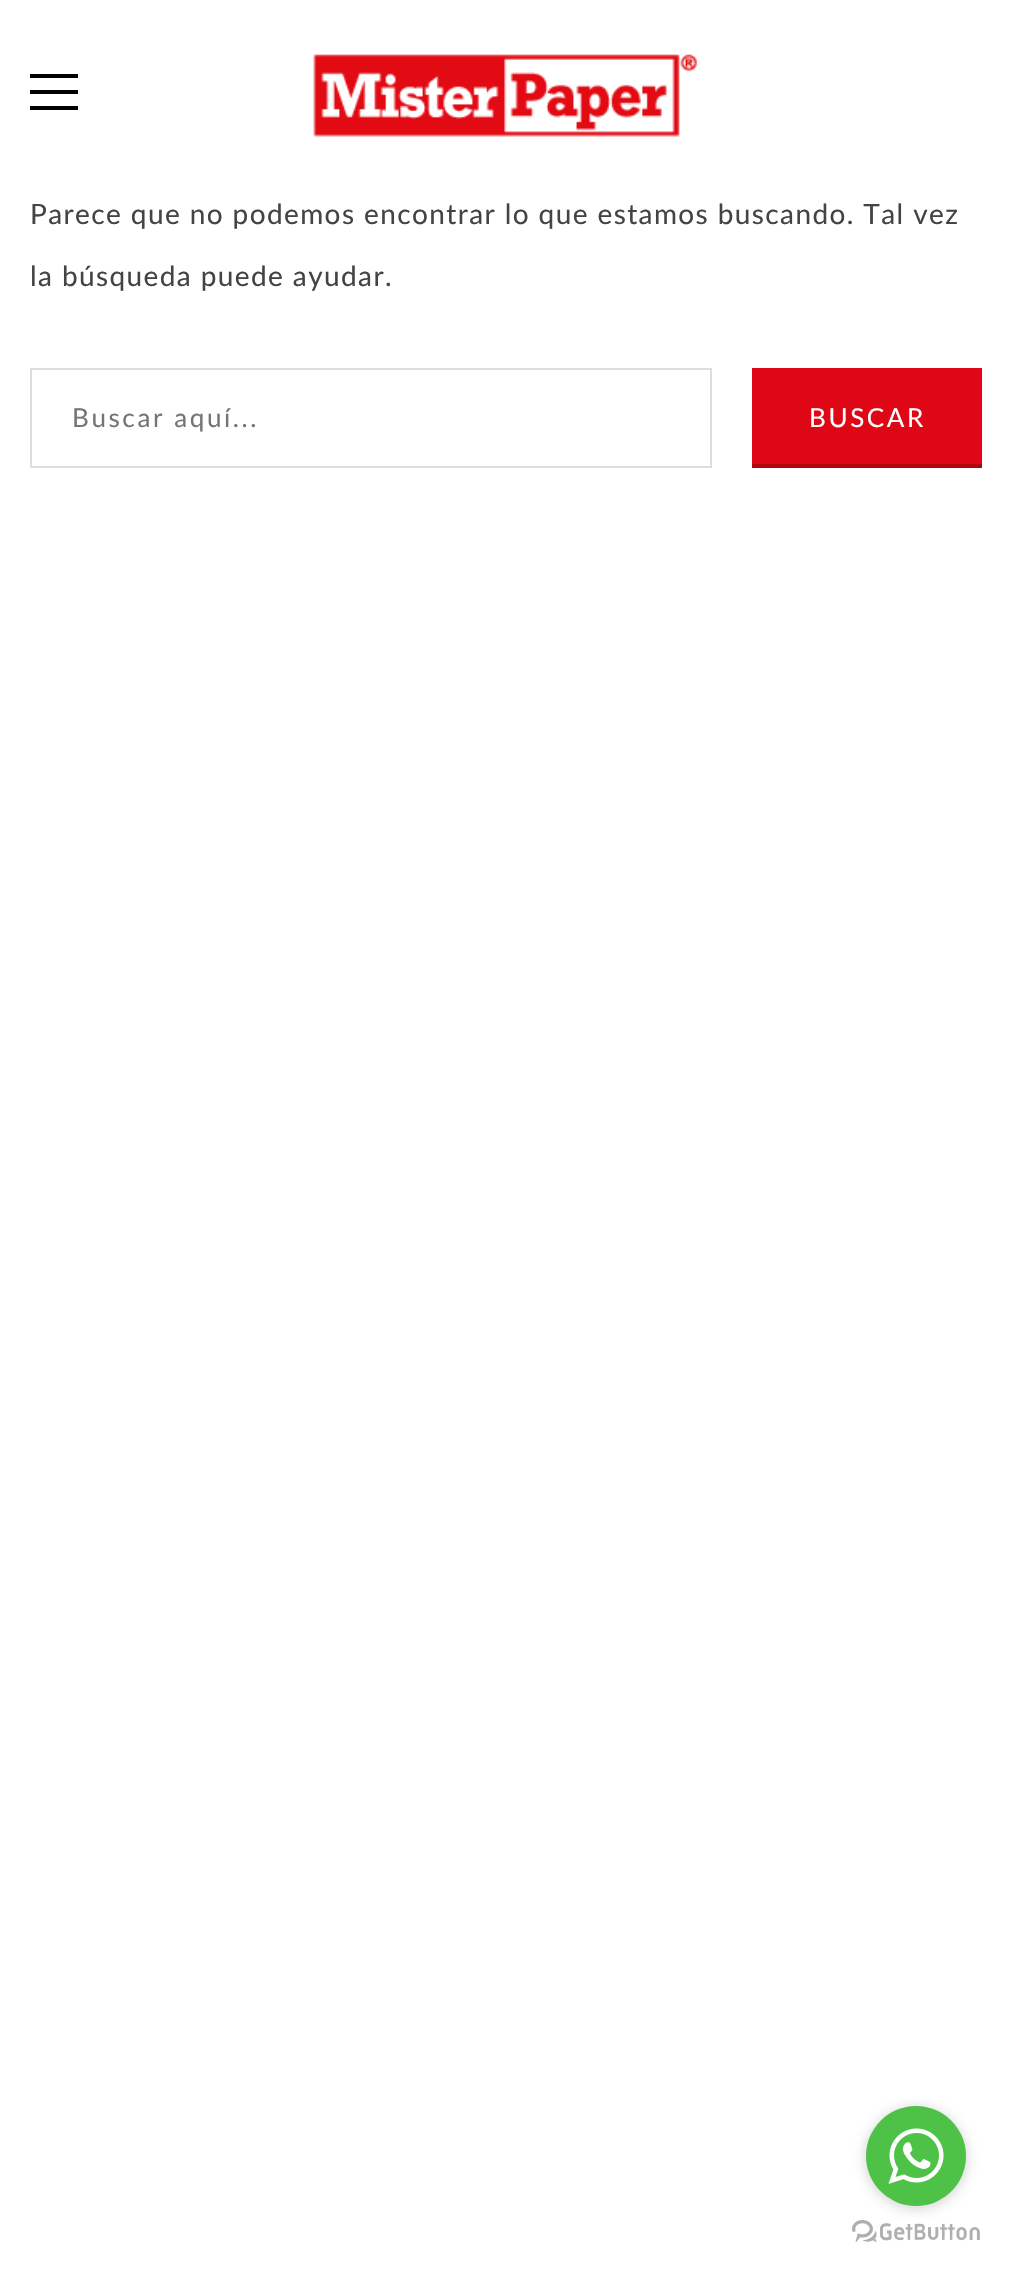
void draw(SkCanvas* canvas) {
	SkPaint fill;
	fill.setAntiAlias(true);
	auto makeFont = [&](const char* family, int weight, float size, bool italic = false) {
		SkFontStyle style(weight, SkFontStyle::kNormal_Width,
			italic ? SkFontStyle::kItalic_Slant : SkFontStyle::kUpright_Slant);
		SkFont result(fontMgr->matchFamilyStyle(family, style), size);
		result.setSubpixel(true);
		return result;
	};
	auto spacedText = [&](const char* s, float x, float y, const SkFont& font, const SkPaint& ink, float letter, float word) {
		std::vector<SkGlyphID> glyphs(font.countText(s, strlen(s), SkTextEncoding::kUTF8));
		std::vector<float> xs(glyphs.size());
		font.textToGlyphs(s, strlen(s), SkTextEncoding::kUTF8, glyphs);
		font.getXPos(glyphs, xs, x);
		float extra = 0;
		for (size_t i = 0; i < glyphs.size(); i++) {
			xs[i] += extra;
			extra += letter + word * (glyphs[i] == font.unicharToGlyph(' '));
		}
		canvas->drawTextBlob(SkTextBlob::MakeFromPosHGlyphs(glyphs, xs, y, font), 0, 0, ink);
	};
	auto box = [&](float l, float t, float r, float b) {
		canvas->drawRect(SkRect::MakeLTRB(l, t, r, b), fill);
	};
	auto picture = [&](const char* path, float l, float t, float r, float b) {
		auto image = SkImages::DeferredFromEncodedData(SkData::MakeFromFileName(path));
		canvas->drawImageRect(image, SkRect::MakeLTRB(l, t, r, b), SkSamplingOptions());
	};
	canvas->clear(0xFFFFFFFF);
	fill.setColor(0xFF000000);
	box(30, 74, 78, 78);
	box(30, 90, 78, 94);
	box(30, 106, 78, 110);
	picture("image0.png", 313, 54, 698, 137);
	fill.setStyle(SkPaint::kStroke_Style);
	fill.setStrokeWidth(2);
	fill.setColor(0xFFDDDDDD);
	canvas->drawRect(SkRect::MakeLTRB(31, 369, 711, 467), fill);
	fill.setStyle(SkPaint::kFill_Style);
	fill.setColor(0xFFDF0616);
	box(752, 368, 982, 464);
	fill.setColor(0xFFB20512);
	box(752, 464, 982, 468);
	picture("image2.png", 852, 2220, 980, 2242);
	fill.setColor(0x66888888);
	fill.setMaskFilter(SkMaskFilter::MakeBlur(kNormal_SkBlurStyle, 7));
	canvas->drawRoundRect(SkRect::MakeLTRB(866, 2108, 966, 2208), 50, 50, fill);
	fill.setMaskFilter(nullptr);
	fill.setColor(0xFF4DC247);
	canvas->drawCircle(916, 2156, 50, fill);
	picture("image1.png", 888, 2128, 944, 2184);
	auto font1 = makeFont("Lato", 400, 28);
	fill.setColor(0xFF444444);
	spacedText("Parece que no podemos encontrar lo que estamos buscando. Tal vez", 30, 224, font1, fill, 1.4f, 0);
	spacedText("la búsqueda puede ayudar.", 30, 286, font1, fill, 1.4f, 0);
	auto font2 = makeFont("Lato", 400, 26);
	fill.setColor(0xFF757575);
	spacedText("Buscar aquí...", 72, 427, font2, fill, 2.6f, 0);
	fill.setColor(0xFFFFFFFF);
	spacedText("BUSCAR", 809, 427, font2, fill, 2.6f, 0);
}
